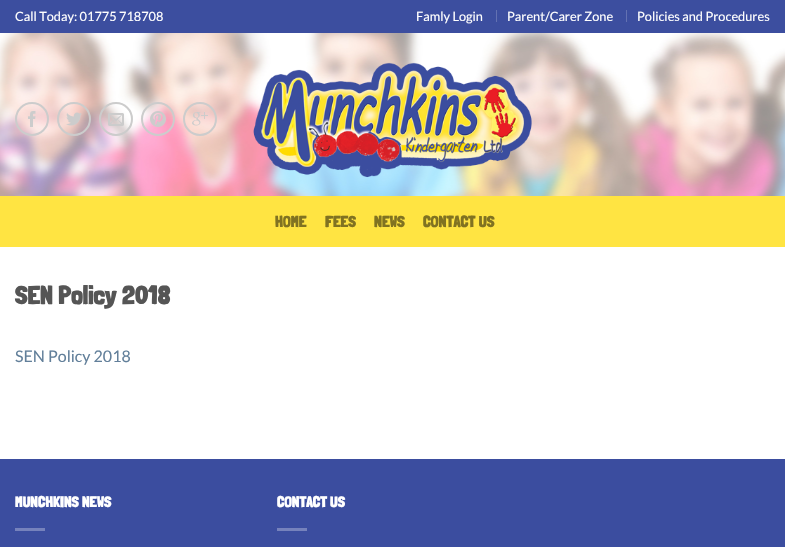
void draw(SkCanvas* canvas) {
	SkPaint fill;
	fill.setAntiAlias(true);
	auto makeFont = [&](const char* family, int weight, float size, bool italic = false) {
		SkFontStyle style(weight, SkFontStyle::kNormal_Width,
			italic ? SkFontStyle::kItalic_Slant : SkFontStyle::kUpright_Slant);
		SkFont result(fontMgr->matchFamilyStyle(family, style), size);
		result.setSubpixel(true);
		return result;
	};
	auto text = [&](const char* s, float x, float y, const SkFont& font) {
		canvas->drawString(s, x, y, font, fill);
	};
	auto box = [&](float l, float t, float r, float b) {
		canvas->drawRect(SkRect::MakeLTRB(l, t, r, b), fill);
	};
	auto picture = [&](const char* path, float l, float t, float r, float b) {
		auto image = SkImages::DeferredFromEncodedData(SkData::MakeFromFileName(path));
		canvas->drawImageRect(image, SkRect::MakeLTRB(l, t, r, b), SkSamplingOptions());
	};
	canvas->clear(0xFFFFFFFF);
	fill.setColor(0xFF3C4E9F);
	box(0, 0, 785, 33);
	fill.setColor(0xFF6371B2);
	box(496, 10, 497, 22);
	box(626, 10, 627, 22);
	picture("image0.png", 0, 33, 785, 196);
	fill.setStyle(SkPaint::kStroke_Style);
	fill.setStrokeWidth(2);
	fill.setColor(0xFFCCCCCC);
	canvas->drawCircle(32, 119, 16, fill);
	picture("image1.png", 28, 111, 36, 127);
	canvas->drawCircle(74, 119, 16, fill);
	picture("image2.png", 66, 112, 82, 126);
	canvas->drawCircle(116, 119, 16, fill);
	picture("image3.png", 108, 113, 124, 126);
	canvas->drawCircle(158, 119, 16, fill);
	picture("image4.png", 150, 111, 166, 127);
	canvas->drawCircle(200, 119, 16, fill);
	picture("image5.png", 192, 112, 208, 126);
	picture("image6.png", 253, 62, 532, 178);
	fill.setStyle(SkPaint::kFill_Style);
	fill.setColor(0xFFFFE442);
	box(0, 196, 785, 247);
	fill.setColor(0xFF3B4D9F);
	box(0, 459, 785, 547);
	fill.setColor(0xFF7682BC);
	box(15, 528, 45, 531);
	box(277, 528, 307, 531);
	auto font1 = makeFont("Lato", 400, 12.75f);
	fill.setColor(0xFFFFFFFF);
	text("Call Today: 01775 718708", 15, 21, font1);
	text("Famly Login", 416, 21, font1);
	text("Parent/Carer Zone", 507, 21, font1);
	text("Policies and Procedures", 637, 21, font1);
	auto font2 = makeFont("Londrina Solid", 900, 16);
	fill.setColor(0xFF807221);
	text("HOME", 275, 227, font2);
	text("FEES", 325, 227, font2);
	text("NEWS", 374, 227, font2);
	text("CONTACT US", 423, 227, font2);
	auto font3 = makeFont("Londrina Solid", 900, 26);
	fill.setColor(0xFF555555);
	text("SEN Policy 2018", 15, 304, font3);
	auto font4 = makeFont("Lato", 400, 16);
	fill.setColor(0xFF627F9A);
	text("SEN Policy 2018", 15, 362, font4);
	auto font5 = makeFont("Londrina Solid", 900, 15.25f);
	fill.setColor(0xFFFFFFFF);
	text("MUNCHKINS NEWS", 15, 507, font5);
	text("CONTACT US", 277, 507, font5);
}
